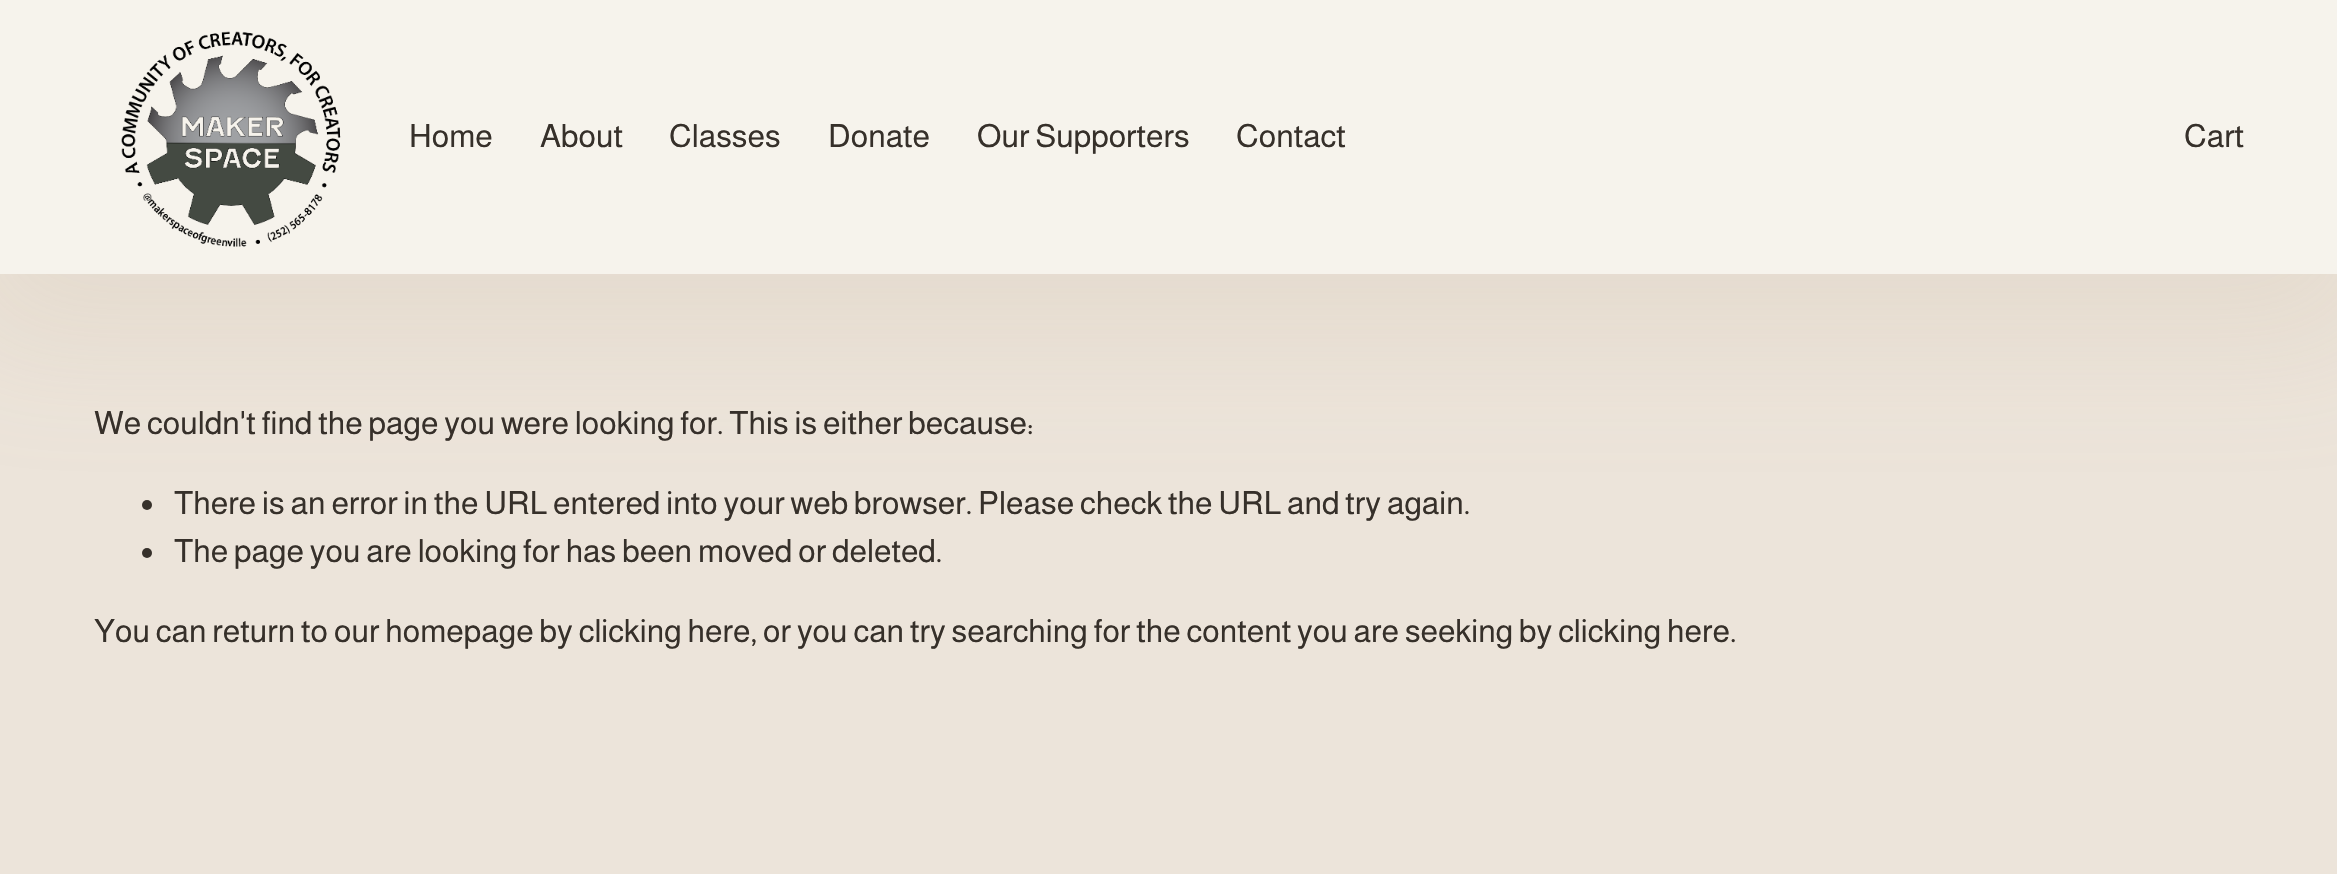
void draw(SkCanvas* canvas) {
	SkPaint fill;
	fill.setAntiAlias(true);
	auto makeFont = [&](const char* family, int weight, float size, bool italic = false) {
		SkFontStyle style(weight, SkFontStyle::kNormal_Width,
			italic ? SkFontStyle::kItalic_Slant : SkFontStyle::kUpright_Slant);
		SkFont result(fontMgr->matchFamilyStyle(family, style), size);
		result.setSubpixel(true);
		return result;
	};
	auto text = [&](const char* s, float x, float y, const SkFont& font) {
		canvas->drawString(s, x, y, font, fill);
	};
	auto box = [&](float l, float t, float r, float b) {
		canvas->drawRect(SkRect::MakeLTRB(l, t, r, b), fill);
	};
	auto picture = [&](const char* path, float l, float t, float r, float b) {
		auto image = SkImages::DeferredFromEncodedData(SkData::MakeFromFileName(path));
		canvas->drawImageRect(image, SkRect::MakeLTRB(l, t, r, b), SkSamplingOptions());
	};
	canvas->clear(0xFFECE4DA);
	fill.setColor(0xFF36302A);
	canvas->drawCircle(147, 505, 5, fill);
	canvas->drawCircle(147, 553, 5, fill);
	fill.setColor(0x26B9A590);
	fill.setMaskFilter(SkMaskFilter::MakeBlur(kNormal_SkBlurStyle, 68));
	canvas->drawRect(SkRect::MakeLTRB(-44, -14, 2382, 348), fill);
	fill.setMaskFilter(nullptr);
	fill.setColor(0xFFF6F3EC);
	box(0, 0, 2337, 274);
	picture("image0.png", 121, 31, 341, 247);
	auto font1 = makeFont("Almarai", 400, 32);
	fill.setColor(0xFF36302A);
	text("Home", 409, 147, font1);
	text("About", 540, 147, font1);
	text("Classes", 669, 147, font1);
	text("Donate", 828, 147, font1);
	text("Our Supporters", 977, 147, font1);
	text("Contact", 1236, 147, font1);
	text("Cart", 2184, 147, font1);
	text("We couldn't find the page you were looking for. This is either because:", 94, 434, font1);
	text("There is an error in the URL entered into your web browser. Please check the URL and try again.", 174, 514, font1);
	text("The page you are looking for has been moved or deleted.", 174, 562, font1);
	text("You can return to our homepage by clicking here, or you can try searching for the content you are seeking by clicking here.", 94, 642, font1);
}
